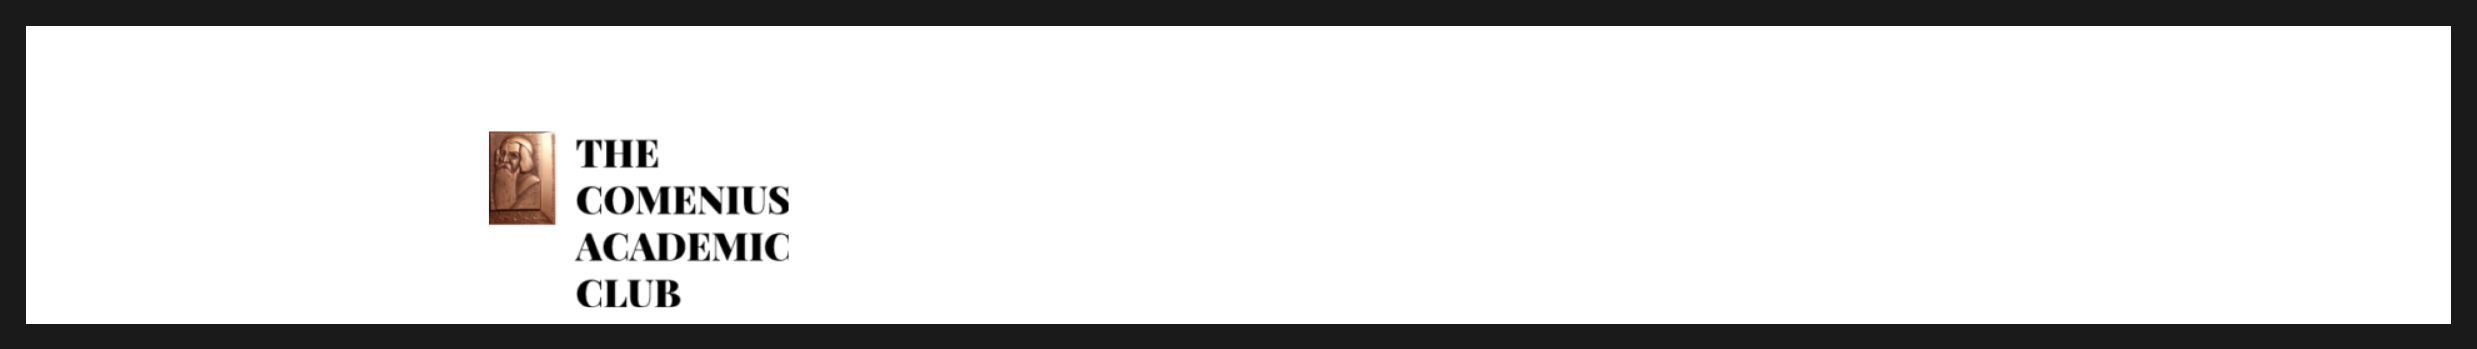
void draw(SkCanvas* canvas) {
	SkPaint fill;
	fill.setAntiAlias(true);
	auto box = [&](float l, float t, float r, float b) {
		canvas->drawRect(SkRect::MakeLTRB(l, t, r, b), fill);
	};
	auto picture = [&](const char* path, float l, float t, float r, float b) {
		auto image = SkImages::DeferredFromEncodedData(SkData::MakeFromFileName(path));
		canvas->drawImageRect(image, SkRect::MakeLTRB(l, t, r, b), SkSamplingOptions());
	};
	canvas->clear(0xFF1A1A1A);
	fill.setColor(0xFFFFFFFF);
	box(26, 26, 2451, 324);
	picture("image0.png", 488, 131, 789, 308);
}
